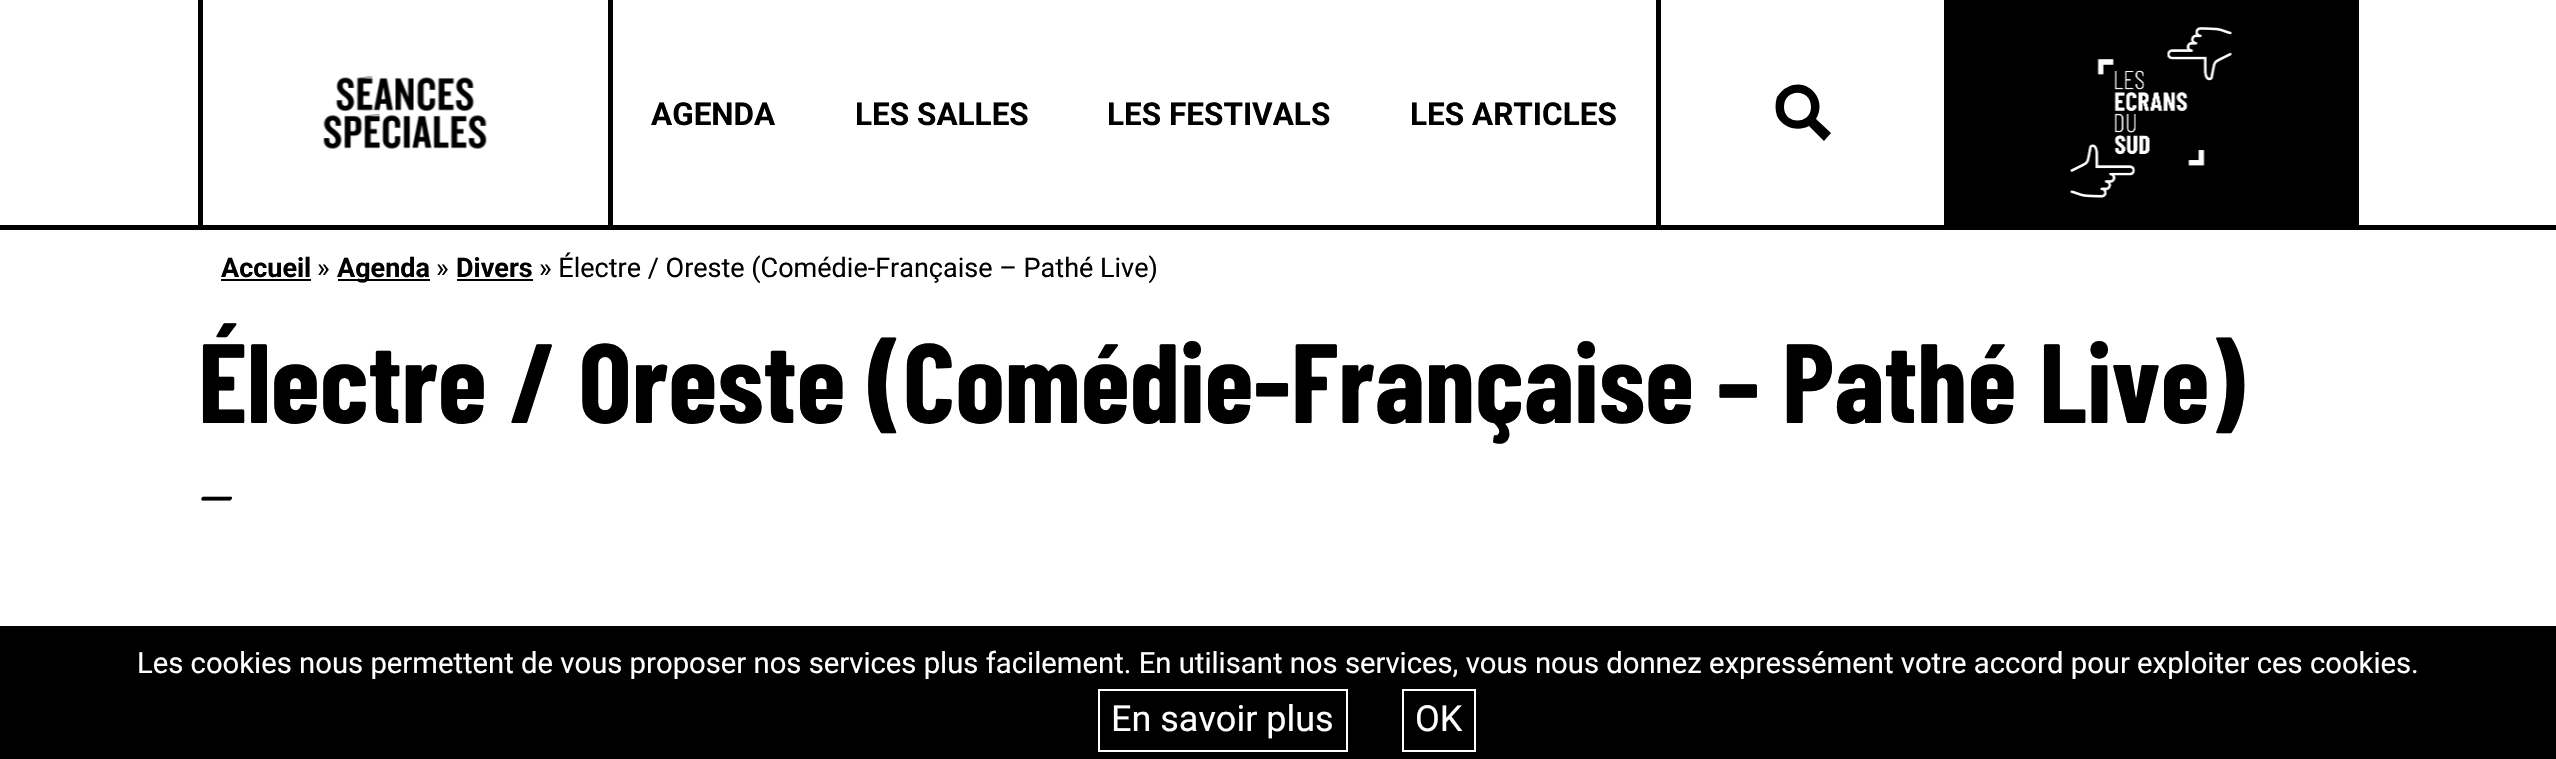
void draw(SkCanvas* canvas) {
	SkPaint fill;
	fill.setAntiAlias(true);
	auto makeFont = [&](const char* family, int weight, float size, bool italic = false) {
		SkFontStyle style(weight, SkFontStyle::kNormal_Width,
			italic ? SkFontStyle::kItalic_Slant : SkFontStyle::kUpright_Slant);
		SkFont result(fontMgr->matchFamilyStyle(family, style), size);
		result.setSubpixel(true);
		return result;
	};
	auto text = [&](const char* s, float x, float y, const SkFont& font) {
		canvas->drawString(s, x, y, font, fill);
	};
	auto box = [&](float l, float t, float r, float b) {
		canvas->drawRect(SkRect::MakeLTRB(l, t, r, b), fill);
	};
	auto picture = [&](const char* path, float l, float t, float r, float b) {
		auto image = SkImages::DeferredFromEncodedData(SkData::MakeFromFileName(path));
		canvas->drawImageRect(image, SkRect::MakeLTRB(l, t, r, b), SkSamplingOptions());
	};
	canvas->clear(0xFFFFFFFF);
	fill.setColor(0xFF000000);
	box(0, 225, 2556, 230);
	box(198, 0, 203, 225);
	picture("image0.png", 323, 76, 487, 149);
	box(1944, 0, 2359, 225);
	box(1656, 0, 1661, 225);
	canvas->drawPath(SkPathBuilder().moveTo(1831, 133).lineTo(1816, 119).cubicTo(1828, 100, 1808, 77, 1788, 87).cubicTo(1783, 89, 1780, 93, 1777, 97).cubicTo(1775, 103, 1775, 110, 1777, 116).cubicTo(1783, 128, 1798, 132, 1809, 126).lineTo(1824, 141).close().moveTo(1784, 107).cubicTo(1784, 88, 1811, 88, 1811, 107).cubicTo(1811, 125, 1784, 125, 1784, 107).close().detach(), fill);
	box(608, 0, 613, 230);
	picture("image1.png", 2070, 27, 2232, 198);
	box(221, 279, 311, 281);
	box(338, 279, 430, 281);
	box(457, 279, 533, 281);
	box(0, 626, 2556, 759);
	fill.setStyle(SkPaint::kStroke_Style);
	fill.setStrokeWidth(2);
	fill.setColor(0xFFFFFFFF);
	canvas->drawRect(SkRect::MakeLTRB(1099, 690, 1347, 751), fill);
	canvas->drawRect(SkRect::MakeLTRB(1403, 690, 1475, 751), fill);
	auto font1 = makeFont("Roboto", 700, 31.5f);
	fill.setStyle(SkPaint::kFill_Style);
	fill.setColor(0xFF000000);
	text("AGENDA", 651, 125, font1);
	text("LES SALLES", 855, 125, font1);
	text("LES FESTIVALS", 1107, 125, font1);
	text("LES ARTICLES", 1410, 125, font1);
	auto font2 = makeFont("Roboto", 700, 27);
	text("Accueil", 221, 277, font2);
	auto font3 = makeFont("Roboto", 400, 27);
	text("»", 317, 277, font3);
	text("Agenda", 337, 277, font2);
	text("»", 436, 277, font3);
	text("Divers", 456, 277, font2);
	text("» Électre / Oreste (Comédie-Française – Pathé Live)", 539, 277, font3);
	auto font4 = makeFont("Barlow Condensed", 700, 112.5f);
	text("Électre / Oreste (Comédie-Française – Pathé Live)", 198, 423, font4);
	auto font5 = makeFont("EB Garamond", 400, 68);
	text("–", 198, 513, font5);
	auto font6 = makeFont("Roboto", 400, 29.25f);
	fill.setColor(0xFFFFFFFF);
	text("Les cookies nous permettent de vous proposer nos services plus facilement. En utilisant nos services, vous nous donnez expressément votre accord pour exploiter ces cookies.", 137, 673, font6);
	auto font7 = makeFont("Roboto", 400, 36);
	text("En savoir plus", 1111, 731, font7);
	text("OK", 1415, 731, font7);
}
